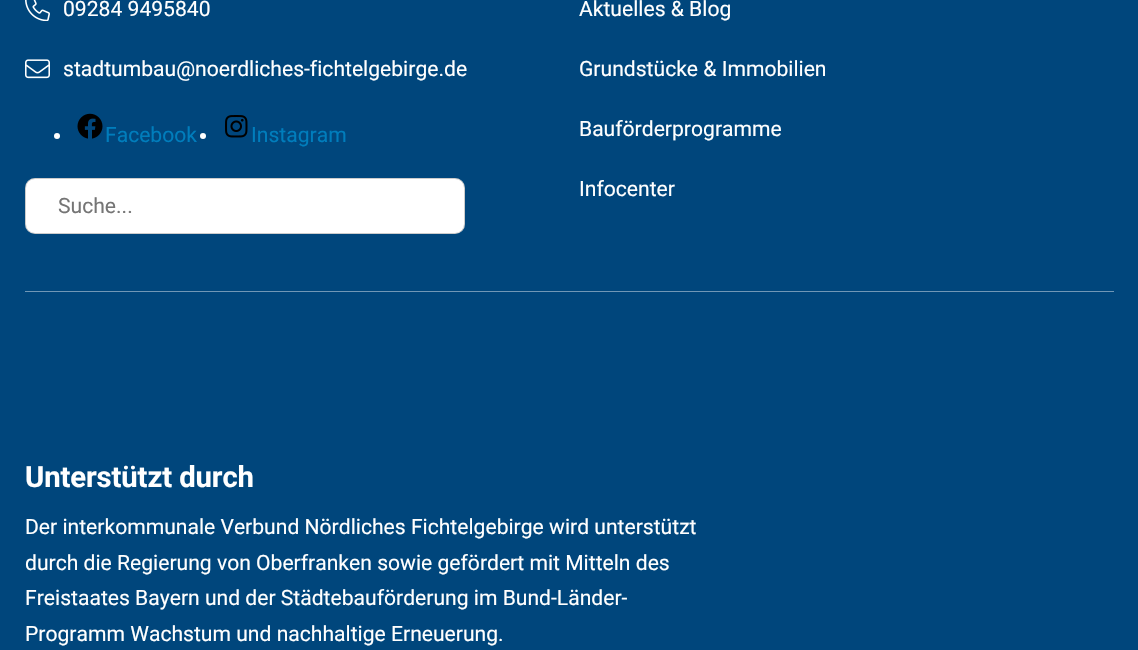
void draw(SkCanvas* canvas) {
	SkPaint fill;
	fill.setAntiAlias(true);
	auto makeFont = [&](const char* family, int weight, float size, bool italic = false) {
		SkFontStyle style(weight, SkFontStyle::kNormal_Width,
			italic ? SkFontStyle::kItalic_Slant : SkFontStyle::kUpright_Slant);
		SkFont result(fontMgr->matchFamilyStyle(family, style), size);
		result.setSubpixel(true);
		return result;
	};
	auto text = [&](const char* s, float x, float y, const SkFont& font) {
		canvas->drawString(s, x, y, font, fill);
	};
	auto spacedText = [&](const char* s, float x, float y, const SkFont& font, const SkPaint& ink, float letter, float word) {
		std::vector<SkGlyphID> glyphs(font.countText(s, strlen(s), SkTextEncoding::kUTF8));
		std::vector<float> xs(glyphs.size());
		font.textToGlyphs(s, strlen(s), SkTextEncoding::kUTF8, glyphs);
		font.getXPos(glyphs, xs, x);
		float extra = 0;
		for (size_t i = 0; i < glyphs.size(); i++) {
			xs[i] += extra;
			extra += letter + word * (glyphs[i] == font.unicharToGlyph(' '));
		}
		canvas->drawTextBlob(SkTextBlob::MakeFromPosHGlyphs(glyphs, xs, y, font), 0, 0, ink);
	};
	auto box = [&](float l, float t, float r, float b) {
		canvas->drawRect(SkRect::MakeLTRB(l, t, r, b), fill);
	};
	auto roundBox = [&](float l, float t, float r, float b, float radius) {
		canvas->drawRoundRect(SkRect::MakeLTRB(l, t, r, b), radius, radius, fill);
	};
	auto picture = [&](const char* path, float l, float t, float r, float b) {
		auto image = SkImages::DeferredFromEncodedData(SkData::MakeFromFileName(path));
		canvas->drawImageRect(image, SkRect::MakeLTRB(l, t, r, b), SkSamplingOptions());
	};
	canvas->clear(0xFF00467C);
	picture("image0.png", 25, 0, 50, 21);
	picture("image1.png", 25, 59, 50, 79);
	fill.setColor(0xFFFFFFFF);
	canvas->drawCircle(57, 136, 3, fill);
	picture("image2.png", 77, 113, 103, 139);
	canvas->drawCircle(203, 136, 3, fill);
	picture("image3.png", 225, 115, 248, 138);
	roundBox(25, 178, 465, 234, 10);
	fill.setStyle(SkPaint::kStroke_Style);
	fill.setStrokeWidth(1);
	fill.setColor(0x33000000);
	canvas->drawRoundRect(SkRect::MakeLTRB(25.5f, 178.5f, 464.5f, 233.5f), 9.5f, 9.5f, fill);
	fill.setStyle(SkPaint::kFill_Style);
	fill.setColor(0xFF7097B6);
	box(25, 291, 1114, 292);
	auto font1 = makeFont("Roboto", 400, 21.1f);
	fill.setColor(0xFFFFFFFF);
	text("09284 9495840", 63, 16, font1);
	text("stadtumbau@noerdliches-fichtelgebirge.de", 63, 76, font1);
	fill.setColor(0xFF007DBC);
	text("Facebook", 105, 142, font1);
	text("Instagram", 251, 142, font1);
	fill.setColor(0xFF757575);
	text("Suche...", 58, 213, font1);
	fill.setColor(0xFFFFFFFF);
	text("Aktuelles & Blog", 579, 16, font1);
	text("Grundstücke & Immobilien", 579, 76, font1);
	text("Bauförderprogramme", 579, 136, font1);
	text("Infocenter", 579, 196, font1);
	auto font2 = makeFont("Roboto", 700, 29.25f);
	spacedText("Unterstützt durch", 25, 487, font2, fill, -0.1f, 0);
	text("Der interkommunale Verbund Nördliches Fichtelgebirge wird unterstützt", 25, 534, font1);
	text("durch die Regierung von Oberfranken sowie gefördert mit Mitteln des", 25, 570, font1);
	text("Freistaates Bayern und der Städtebauförderung im Bund-Länder-", 25, 605, font1);
	text("Programm Wachstum und nachhaltige Erneuerung.", 25, 641, font1);
}
